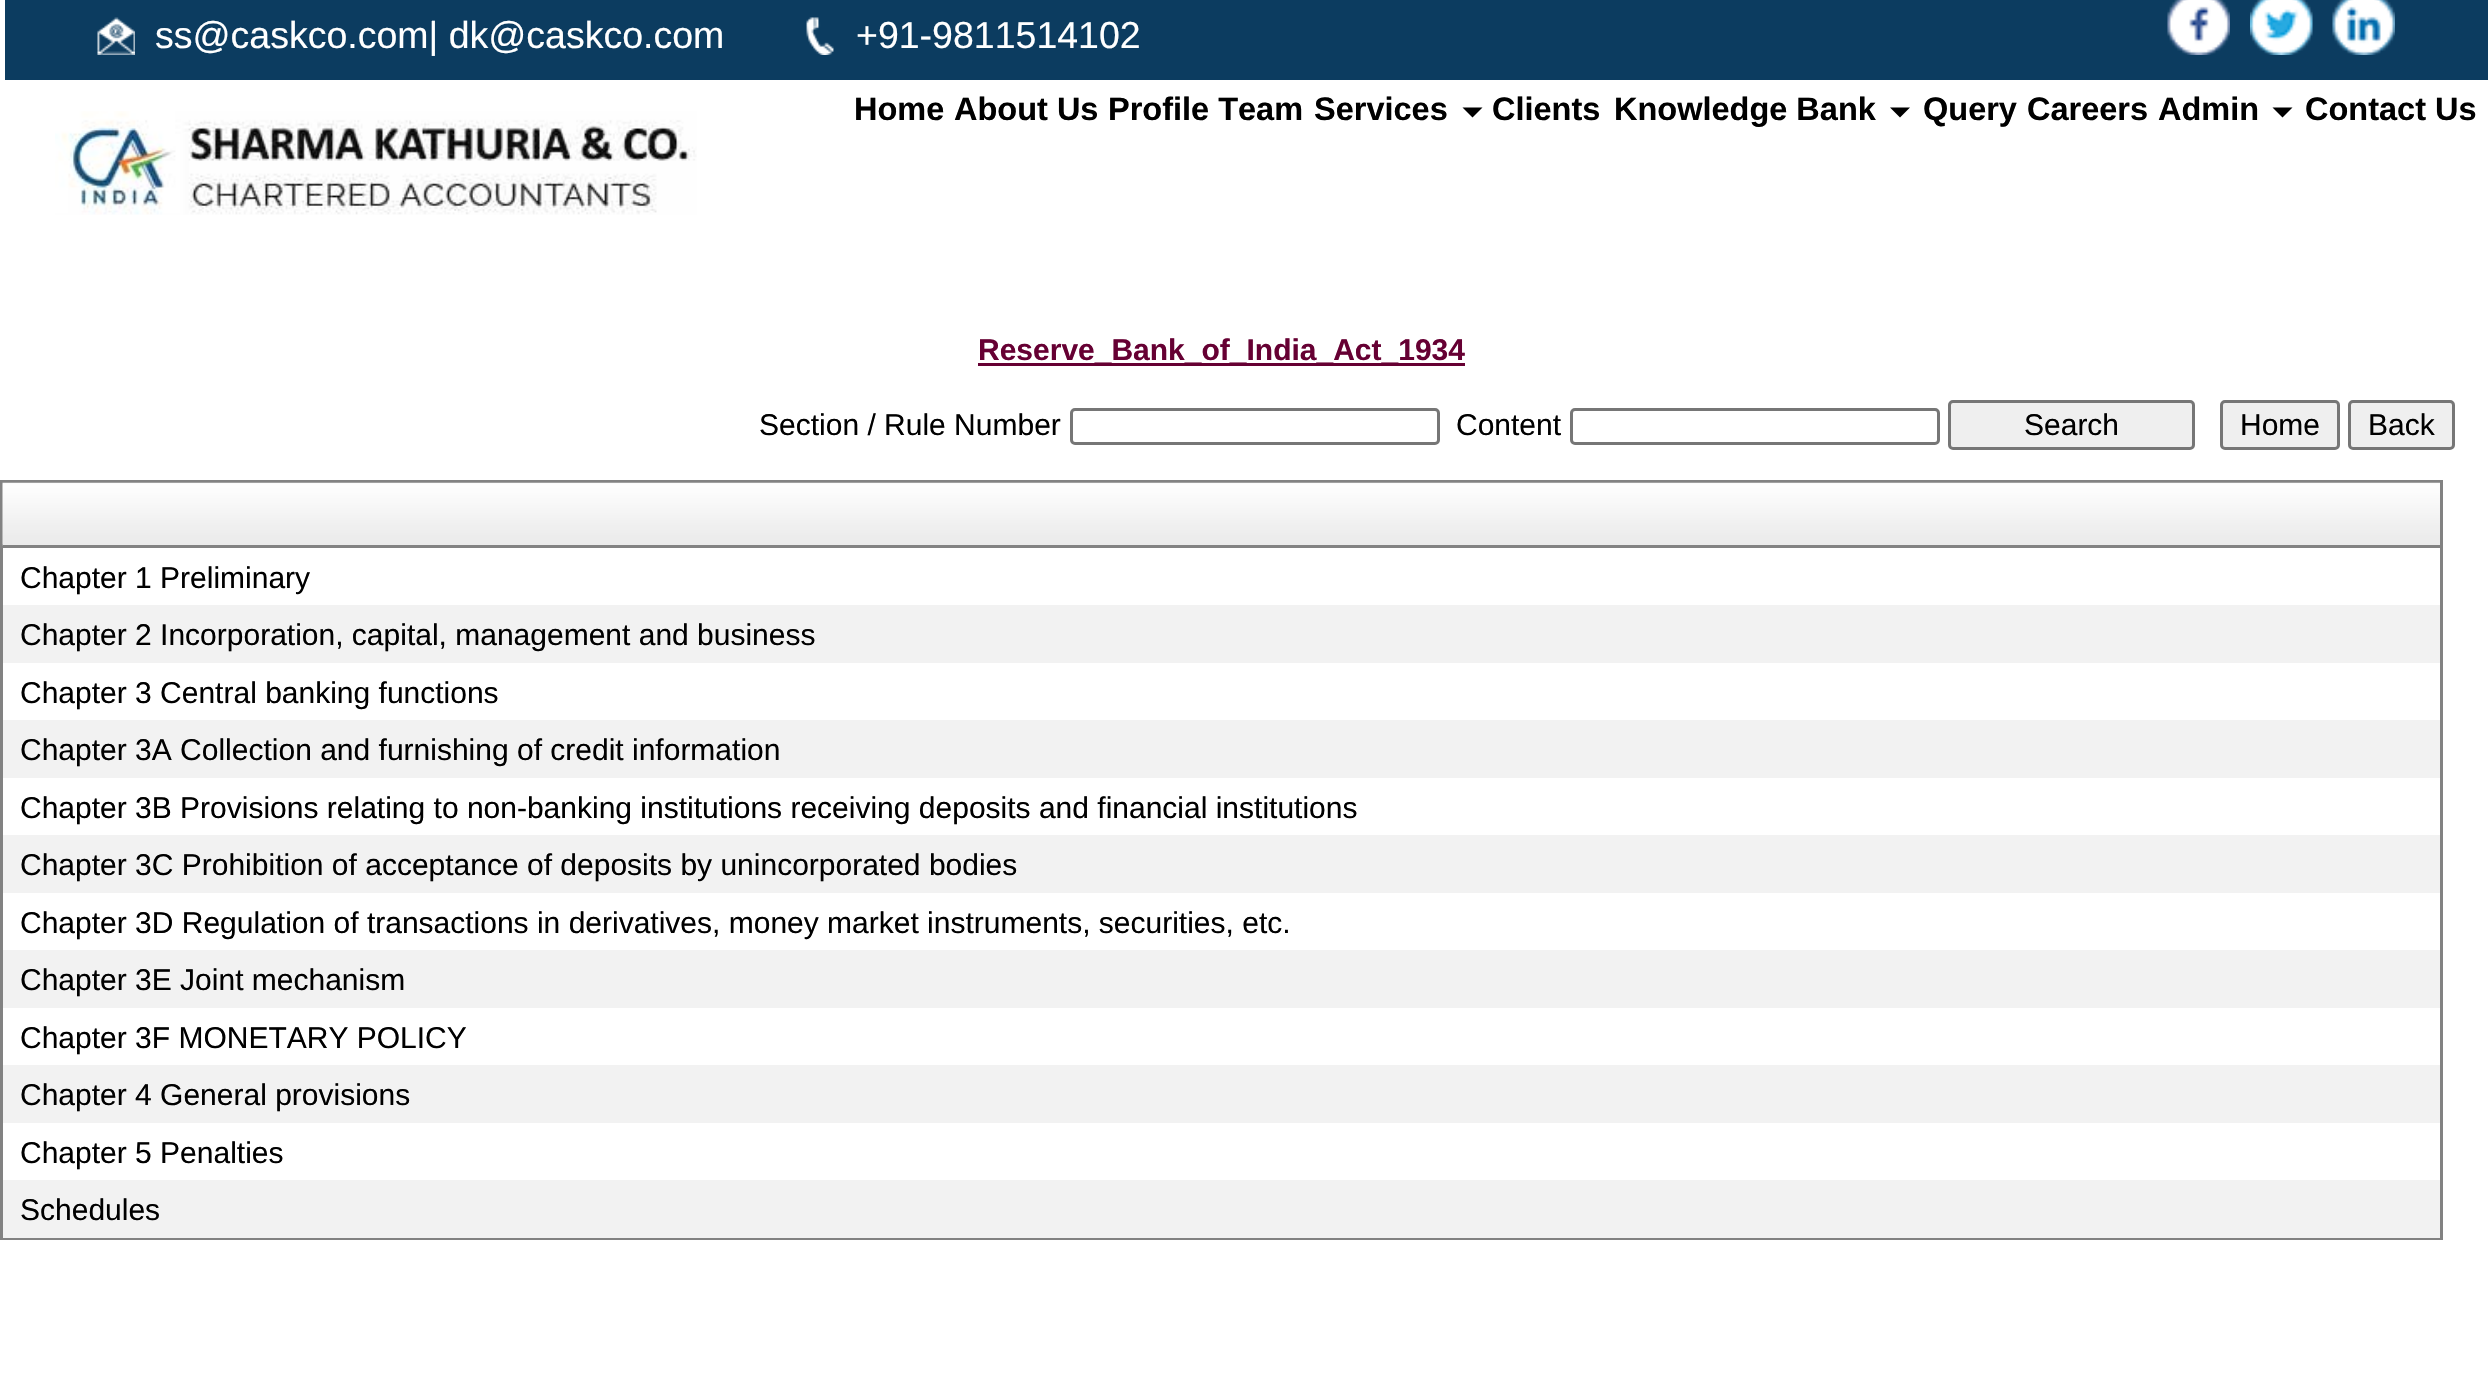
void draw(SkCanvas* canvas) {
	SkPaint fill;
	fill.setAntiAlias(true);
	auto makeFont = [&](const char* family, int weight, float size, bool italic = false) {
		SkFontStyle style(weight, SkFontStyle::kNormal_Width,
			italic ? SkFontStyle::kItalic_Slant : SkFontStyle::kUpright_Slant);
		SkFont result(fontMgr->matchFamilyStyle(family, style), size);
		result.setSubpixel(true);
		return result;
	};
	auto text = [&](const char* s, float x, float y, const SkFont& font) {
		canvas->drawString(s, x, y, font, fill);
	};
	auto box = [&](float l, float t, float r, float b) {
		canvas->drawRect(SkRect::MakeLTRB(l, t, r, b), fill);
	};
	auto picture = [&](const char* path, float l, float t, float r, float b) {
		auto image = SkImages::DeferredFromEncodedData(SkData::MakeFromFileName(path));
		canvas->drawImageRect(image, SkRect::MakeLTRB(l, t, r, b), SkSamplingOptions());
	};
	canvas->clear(0xFFFFFFFF);
	fill.setColor(0xFF0C3C60);
	box(5, 0, 2488, 80);
	picture("image0.png", 97, 17, 135, 55);
	picture("image1.png", 806, 17, 834, 55);
	picture("image2.png", 2167, 0, 2230, 55);
	picture("image3.png", 2250, 0, 2313, 55);
	picture("image4.png", 2332, 0, 2395, 55);
	picture("image5.png", 55, 111, 697, 215);
	fill.setColor(0xFF000000);
	canvas->drawPath(SkPathBuilder().moveTo(1462.5f, 107.5f).lineTo(1482.5f, 107.5f).lineTo(1472.5f, 117.5f).close().detach(), fill);
	canvas->drawPath(SkPathBuilder().moveTo(1890, 107.5f).lineTo(1910, 107.5f).lineTo(1900, 117.5f).close().detach(), fill);
	canvas->drawPath(SkPathBuilder().moveTo(2272.5f, 107.5f).lineTo(2292.5f, 107.5f).lineTo(2282.5f, 117.5f).close().detach(), fill);
	fill.setColor(0xFF660033);
	box(978, 363, 1465, 366);
	fill.setStyle(SkPaint::kStroke_Style);
	fill.setStrokeWidth(3);
	fill.setColor(0xFF767676);
	canvas->drawRoundRect(SkRect::MakeLTRB(1071.5f, 409.5f, 1438.5f, 443.5f), 3.5f, 3.5f, fill);
	canvas->drawRoundRect(SkRect::MakeLTRB(1571.5f, 409.5f, 1938.5f, 443.5f), 3.5f, 3.5f, fill);
	fill.setStyle(SkPaint::kFill_Style);
	fill.setColor(0xFFEFEFEF);
	canvas->drawRoundRect(SkRect::MakeLTRB(1949.5f, 401.5f, 2193.5f, 448.5f), 3.5f, 3.5f, fill);
	fill.setStyle(SkPaint::kStroke_Style);
	fill.setColor(0xFF767676);
	canvas->drawRoundRect(SkRect::MakeLTRB(1949.5f, 401.5f, 2193.5f, 448.5f), 3.5f, 3.5f, fill);
	fill.setStyle(SkPaint::kFill_Style);
	fill.setColor(0xFFEFEFEF);
	canvas->drawRoundRect(SkRect::MakeLTRB(2221.5f, 401.5f, 2338.5f, 448.5f), 3.5f, 3.5f, fill);
	fill.setStyle(SkPaint::kStroke_Style);
	fill.setColor(0xFF767676);
	canvas->drawRoundRect(SkRect::MakeLTRB(2221.5f, 401.5f, 2338.5f, 448.5f), 3.5f, 3.5f, fill);
	fill.setStyle(SkPaint::kFill_Style);
	fill.setColor(0xFFEFEFEF);
	canvas->drawRoundRect(SkRect::MakeLTRB(2349.5f, 401.5f, 2453.5f, 448.5f), 3.5f, 3.5f, fill);
	fill.setStyle(SkPaint::kStroke_Style);
	fill.setColor(0xFF767676);
	canvas->drawRoundRect(SkRect::MakeLTRB(2349.5f, 401.5f, 2453.5f, 448.5f), 3.5f, 3.5f, fill);
	fill.setColor(0xFF828282);
	canvas->drawRect(SkRect::MakeLTRB(1.5f, 481.5f, 2441.5f, 1238.5f), fill);
	fill.setStyle(SkPaint::kFill_Style);
	fill.setColor(0xFFEAEAEA);
	box(3, 483, 2440, 545);
	picture("image6.png", 2, 482, 2440, 546);
	fill.setColor(0xFF828282);
	box(3, 545, 2440, 548);
	fill.setColor(0xFFF2F2F2);
	box(3, 605, 2440, 663);
	box(3, 720, 2440, 778);
	box(3, 835, 2440, 893);
	box(3, 950, 2440, 1008);
	box(3, 1065, 2440, 1123);
	box(3, 1180, 2440, 1238);
	auto font1 = makeFont("Liberation Sans", 400, 37.5f);
	fill.setColor(0xFFFFFFFF);
	text("ss@caskco.com| dk@caskco.com", 155, 48, font1);
	text("+91-9811514102", 856, 48, font1);
	auto font2 = makeFont("Liberation Sans", 700, 32.5f);
	fill.setColor(0xFF000000);
	text("Home", 854, 120, font2);
	text("About Us", 954, 120, font2);
	text("Profile Team", 1108, 120, font2);
	text("Services", 1314, 120, font2);
	text("Clients", 1492, 120, font2);
	text("Knowledge Bank", 1614, 120, font2);
	text("Query", 1923, 120, font2);
	text("Careers", 2027, 120, font2);
	text("Admin", 2158, 120, font2);
	text("Contact Us", 2305, 120, font2);
	auto font3 = makeFont("Liberation Sans", 700, 30);
	fill.setColor(0xFF660033);
	text("Reserve_Bank_of_India_Act_1934", 978, 360, font3);
	auto font4 = makeFont("Liberation Sans", 400, 30);
	fill.setColor(0xFF000000);
	text("Section / Rule Number", 759, 435, font4);
	text("Content", 1456, 435, font4);
	text("Search", 2024, 435, font4);
	text("Home", 2240, 435, font4);
	text("Back", 2368, 435, font4);
	text("Chapter 1 Preliminary", 20, 588, font4);
	text("Chapter 2 Incorporation, capital, management and business", 20, 645, font4);
	text("Chapter 3 Central banking functions", 20, 703, font4);
	text("Chapter 3A Collection and furnishing of credit information", 20, 760, font4);
	text("Chapter 3B Provisions relating to non-banking institutions receiving deposits and financial institutions", 20, 818, font4);
	text("Chapter 3C Prohibition of acceptance of deposits by unincorporated bodies", 20, 875, font4);
	text("Chapter 3D Regulation of transactions in derivatives, money market instruments, securities, etc.", 20, 933, font4);
	text("Chapter 3E Joint mechanism", 20, 990, font4);
	text("Chapter 3F MONETARY POLICY", 20, 1048, font4);
	text("Chapter 4 General provisions", 20, 1105, font4);
	text("Chapter 5 Penalties", 20, 1163, font4);
	text("Schedules", 20, 1220, font4);
}
